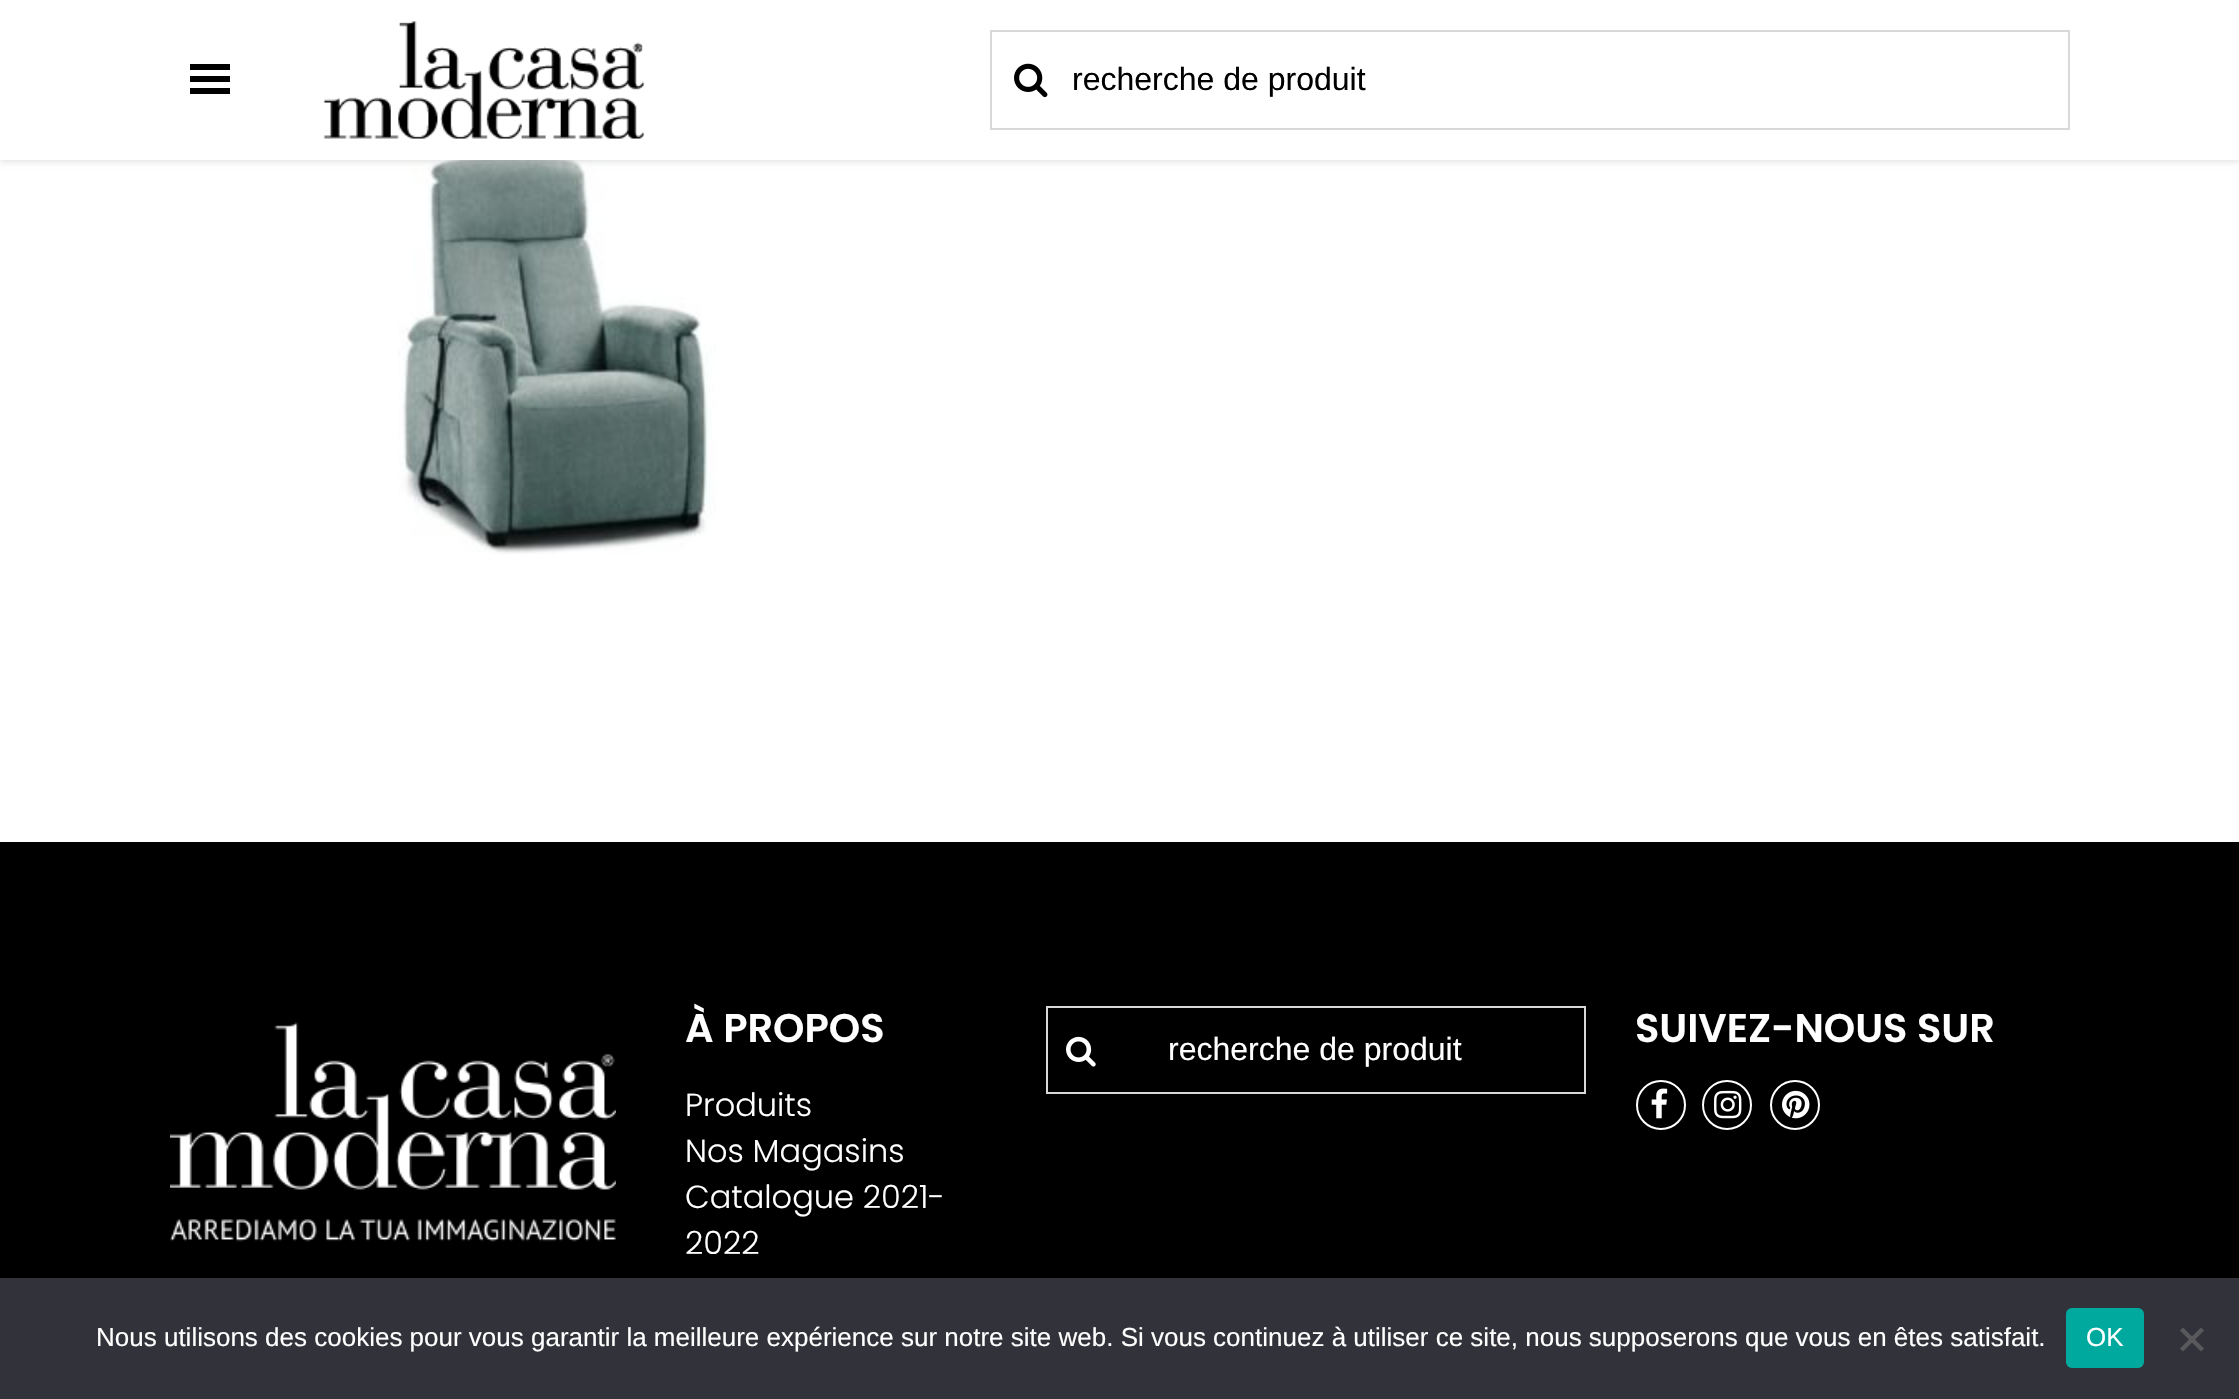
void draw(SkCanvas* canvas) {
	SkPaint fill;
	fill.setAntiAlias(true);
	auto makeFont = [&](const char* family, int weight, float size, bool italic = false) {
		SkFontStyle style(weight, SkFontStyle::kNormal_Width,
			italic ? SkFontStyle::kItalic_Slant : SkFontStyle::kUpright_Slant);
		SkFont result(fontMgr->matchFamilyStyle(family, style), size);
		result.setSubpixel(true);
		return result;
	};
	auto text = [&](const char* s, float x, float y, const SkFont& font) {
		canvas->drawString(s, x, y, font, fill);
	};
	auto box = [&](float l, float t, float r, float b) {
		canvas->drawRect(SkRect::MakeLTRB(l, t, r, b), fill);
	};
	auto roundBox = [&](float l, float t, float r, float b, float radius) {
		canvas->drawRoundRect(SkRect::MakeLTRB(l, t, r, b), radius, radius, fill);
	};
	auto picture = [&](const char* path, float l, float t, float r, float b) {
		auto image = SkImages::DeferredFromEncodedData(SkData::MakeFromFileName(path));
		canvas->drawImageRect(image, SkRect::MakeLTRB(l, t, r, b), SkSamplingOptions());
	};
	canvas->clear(0xFF000000);
	fill.setColor(0xFFFFFFFF);
	box(0, 160, 2239, 842);
	picture("image2.png", 398, 160, 716, 555);
	fill.setColor(0x1C000000);
	fill.setMaskFilter(SkMaskFilter::MakeBlur(kNormal_SkBlurStyle, 3));
	canvas->drawRect(SkRect::MakeLTRB(0, 2, 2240, 162), fill);
	fill.setMaskFilter(nullptr);
	fill.setColor(0xFFFFFFFF);
	box(0, 0, 2239, 160);
	fill.setColor(0xFF000000);
	canvas->drawPath(SkPathBuilder().moveTo(230, 70).lineTo(230, 64).lineTo(190, 64).lineTo(190, 70).close().moveTo(230, 82).lineTo(230, 76).lineTo(190, 76).lineTo(190, 82).close().moveTo(230, 94).lineTo(230, 88).lineTo(190, 88).lineTo(190, 94).close().detach(), fill);
	picture("image0.png", 323, 21, 645, 139);
	fill.setStyle(SkPaint::kStroke_Style);
	fill.setStrokeWidth(2);
	fill.setColor(0xFFD8D8D8);
	canvas->drawRect(SkRect::MakeLTRB(991, 31, 2069, 129), fill);
	picture("image1.png", 1014, 63, 1048, 98);
	picture("image3.png", 170, 1022, 616, 1242);
	canvas->drawRect(SkRect::MakeLTRB(1047, 1007, 1585, 1093), fill);
	picture("image4.png", 1066, 1036, 1096, 1067);
	fill.setColor(0xFFFFFFFF);
	canvas->drawCircle(1661, 1105, 24, fill);
	picture("image5.png", 1651, 1088, 1668, 1119);
	canvas->drawCircle(1727, 1105, 24, fill);
	picture("image6.png", 1714, 1090, 1742, 1119);
	canvas->drawCircle(1795, 1105, 24, fill);
	picture("image7.png", 1782, 1090, 1810, 1119);
	fill.setStyle(SkPaint::kFill_Style);
	fill.setColor(0xFF32323A);
	box(0, 1278, 2239, 1399);
	fill.setColor(0xFF00A99D);
	roundBox(2066, 1308, 2144, 1368, 6);
	fill.setColor(0xFF59595D);
	canvas->drawPath(SkPathBuilder().moveTo(2201, 1327.5f).lineTo(2204, 1330.5f).lineTo(2183, 1351.5f).lineTo(2180, 1348.5f).close().detach(), fill);
	canvas->drawPath(SkPathBuilder().moveTo(2180, 1330.5f).lineTo(2183, 1327.5f).lineTo(2204, 1348.5f).lineTo(2201, 1351.5f).close().detach(), fill);
	auto font1 = makeFont("Liberation Sans", 400, 32);
	fill.setColor(0xFF000000);
	text("recherche de produit", 1072, 90, font1);
	auto font2 = makeFont("Poppins", 600, 40);
	fill.setColor(0xFFFFFFFF);
	text("À PROPOS", 685, 1042, font2);
	auto font3 = makeFont("Poppins", 300, 32);
	text("Produits", 685, 1116, font3);
	text("Nos Magasins", 685, 1162, font3);
	text("Catalogue 2021-", 685, 1208, font3);
	text("2022", 685, 1254, font3);
	text("recherche de produit", 1168, 1060, font1);
	text("SUIVEZ-NOUS SUR", 1635, 1042, font2);
	auto font4 = makeFont("Liberation Sans", 400, 26);
	text("Nous utilisons des cookies pour vous garantir la meilleure expérience sur notre site web. Si vous continuez à utiliser ce site, nous supposerons que vous en êtes satisfait.", 96, 1346, font4);
	text("OK", 2086, 1346, font4);
}
